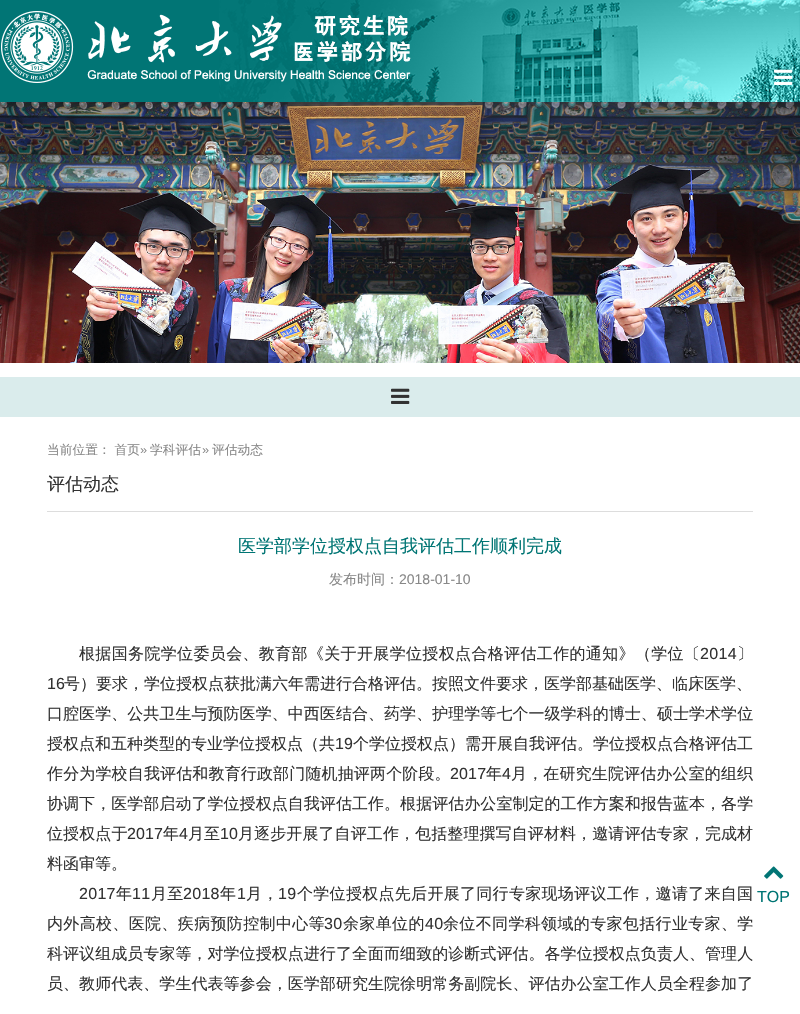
void draw(SkCanvas* canvas) {
	SkPaint fill;
	fill.setAntiAlias(true);
	auto makeFont = [&](const char* family, int weight, float size, bool italic = false) {
		SkFontStyle style(weight, SkFontStyle::kNormal_Width,
			italic ? SkFontStyle::kItalic_Slant : SkFontStyle::kUpright_Slant);
		SkFont result(fontMgr->matchFamilyStyle(family, style), size);
		result.setSubpixel(true);
		return result;
	};
	auto text = [&](const char* s, float x, float y, const SkFont& font) {
		canvas->drawString(s, x, y, font, fill);
	};
	auto spacedText = [&](const char* s, float x, float y, const SkFont& font, const SkPaint& ink, float letter, float word) {
		std::vector<SkGlyphID> glyphs(font.countText(s, strlen(s), SkTextEncoding::kUTF8));
		std::vector<float> xs(glyphs.size());
		font.textToGlyphs(s, strlen(s), SkTextEncoding::kUTF8, glyphs);
		font.getXPos(glyphs, xs, x);
		float extra = 0;
		for (size_t i = 0; i < glyphs.size(); i++) {
			xs[i] += extra;
			extra += letter + word * (glyphs[i] == font.unicharToGlyph(' '));
		}
		canvas->drawTextBlob(SkTextBlob::MakeFromPosHGlyphs(glyphs, xs, y, font), 0, 0, ink);
	};
	auto box = [&](float l, float t, float r, float b) {
		canvas->drawRect(SkRect::MakeLTRB(l, t, r, b), fill);
	};
	auto picture = [&](const char* path, float l, float t, float r, float b) {
		auto image = SkImages::DeferredFromEncodedData(SkData::MakeFromFileName(path));
		canvas->drawImageRect(image, SkRect::MakeLTRB(l, t, r, b), SkSamplingOptions());
	};
	canvas->clear(0xFFFFFFFF);
	fill.setColor(0xFF017575);
	box(0, 0, 219, 102);
	picture("image0.png", 219, 0, 800, 102);
	picture("image1.png", 1, 11, 411, 83);
	picture("image2.png", 774, 69, 793, 85);
	picture("image3.png", 0, 102, 800, 363);
	fill.setColor(0xFFDAECEC);
	box(0, 377, 800, 417);
	picture("image4.png", 391, 388, 410, 404);
	fill.setColor(0xFFDDDDDD);
	box(47, 511, 753, 512);
	picture("image5.png", 764, 866, 784, 879);
	auto font1 = makeFont("WenQuanYi Zen Hei", 500, 12.75f);
	fill.setColor(0xFF888888);
	text("当前位置： 首页", 47, 454, font1);
	auto font2 = makeFont("Liberation Sans", 400, 12.75f);
	text("»", 140, 454, font2);
	text("学科评估", 150, 454, font1);
	text("»", 202, 454, font2);
	text("评估动态", 212, 454, font1);
	auto font3 = makeFont("WenQuanYi Zen Hei", 500, 18);
	fill.setColor(0xFF323232);
	text("评估动态", 47, 490, font3);
	fill.setColor(0xFF007574);
	text("医学部学位授权点自我评估工作顺利完成", 238, 552, font3);
	auto font4 = makeFont("WenQuanYi Zen Hei", 500, 14);
	fill.setColor(0xFF888888);
	text("发布时间：", 329, 584, font4);
	auto font5 = makeFont("Liberation Sans", 400, 14);
	text("2018-01-10", 399, 584, font5);
	auto font6 = makeFont("WenQuanYi Zen Hei", 500, 16);
	fill.setColor(0xFF323232);
	spacedText("根据国务院学位委员会、教育部《关于开展学位授权点合格评估工作的通知》（学位〔", 79, 659, font6, fill, 0.35f, 0);
	auto font7 = makeFont("Liberation Sans", 400, 16);
	spacedText("2014", 700, 659, font7, fill, 0.35f, 0);
	spacedText("〕", 737, 659, font6, fill, 0.35f, 0);
	text("16", 47, 689, font7);
	text("号）要求，学位授权点获批满六年需进行合格评估。按照文件要求，医学部基础医学、临床医学、", 64, 689, font6);
	spacedText("口腔医学、公共卫生与预防医学、中西医结合、药学、护理学等七个一级学科的博士、硕士学术学位", 47, 719, font6, fill, 0.05f, 0);
	text("授权点和五种类型的专业学位授权点（共", 47, 749, font6);
	text("19", 335, 749, font7);
	text("个学位授权点）需开展自我评估。学位授权点合格评估工", 353, 749, font6);
	spacedText("作分为学校自我评估和教育行政部门随机抽评两个阶段。", 47, 779, font6, fill, 0.15f, 0);
	spacedText("2017", 450, 779, font7, fill, 0.15f, 0);
	spacedText("年", 486, 779, font6, fill, 0.15f, 0);
	spacedText("4", 502, 779, font7, fill, 0.15f, 0);
	spacedText("月，在研究生院评估办公室的组织", 511, 779, font6, fill, 0.15f, 0);
	spacedText("协调下，医学部启动了学位授权点自我评估工作。根据评估办公室制定的工作方案和报告蓝本，各学", 47, 809, font6, fill, 0.05f, 0);
	spacedText("位授权点于", 47, 839, font6, fill, 0.1f, 0);
	spacedText("2017", 127, 839, font7, fill, 0.1f, 0);
	spacedText("年", 163, 839, font6, fill, 0.1f, 0);
	spacedText("4", 179, 839, font7, fill, 0.1f, 0);
	spacedText("月至", 188, 839, font6, fill, 0.1f, 0);
	spacedText("10", 220, 839, font7, fill, 0.1f, 0);
	spacedText("月逐步开展了自评工作，包括整理撰写自评材料，邀请评估专家，完成材", 238, 839, font6, fill, 0.1f, 0);
	text("料函审等。", 47, 869, font6);
	spacedText("2017", 79, 899, font7, fill, 0.3f, 0);
	spacedText("年", 116, 899, font6, fill, 0.3f, 0);
	spacedText("11", 132, 899, font7, fill, 0.3f, 0);
	spacedText("月至", 151, 899, font6, fill, 0.3f, 0);
	spacedText("2018", 183, 899, font7, fill, 0.3f, 0);
	spacedText("年", 220, 899, font6, fill, 0.3f, 0);
	spacedText("1", 237, 899, font7, fill, 0.3f, 0);
	spacedText("月，", 246, 899, font6, fill, 0.3f, 0);
	spacedText("19", 278, 899, font7, fill, 0.3f, 0);
	spacedText("个学位授权点先后开展了同行专家现场评议工作，邀请了来自国", 297, 899, font6, fill, 0.3f, 0);
	spacedText("内外高校、医院、疾病预防控制中心等", 47, 929, font6, fill, 0.35f, 0);
	spacedText("30", 324, 929, font7, fill, 0.35f, 0);
	spacedText("余家单位的", 343, 929, font6, fill, 0.35f, 0);
	spacedText("40", 425, 929, font7, fill, 0.35f, 0);
	spacedText("余位不同学科领域的专家包括行业专家、学", 443, 929, font6, fill, 0.35f, 0);
	spacedText("科评议组成员专家等，对学位授权点进行了全面而细致的诊断式评估。各学位授权点负责人、管理人", 47, 959, font6, fill, 0.05f, 0);
	spacedText("员、教师代表、学生代表等参会，医学部研究生院徐明常务副院长、评估办公室工作人员全程参加了", 47, 989, font6, fill, 0.05f, 0);
	fill.setColor(0xFF007574);
	text("TOP", 757, 902, font7);
}
